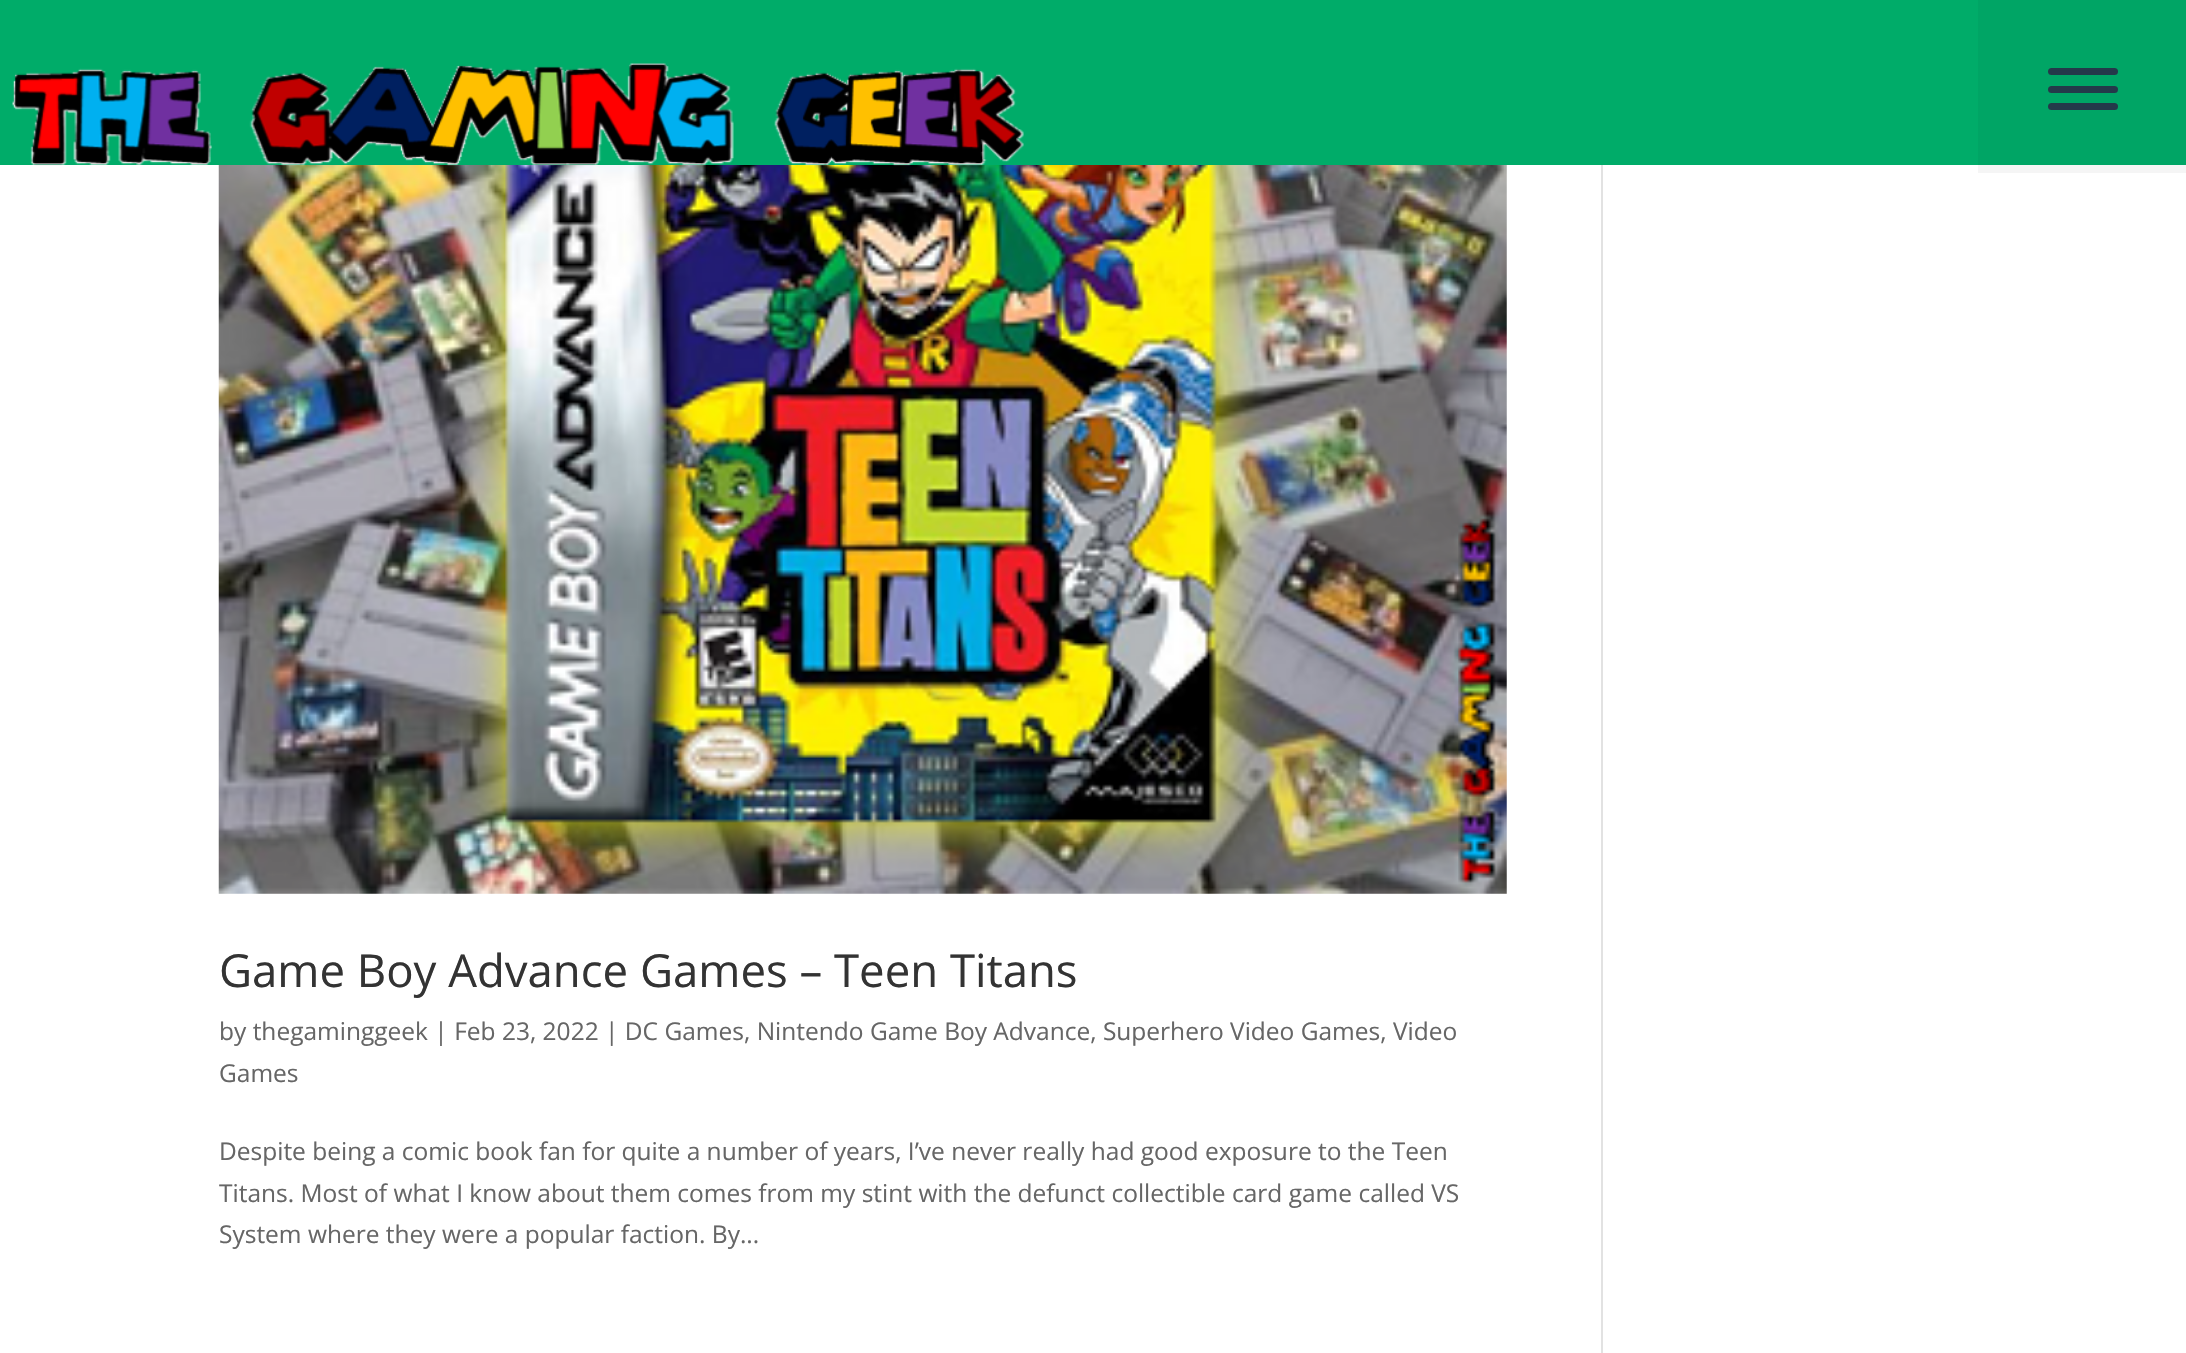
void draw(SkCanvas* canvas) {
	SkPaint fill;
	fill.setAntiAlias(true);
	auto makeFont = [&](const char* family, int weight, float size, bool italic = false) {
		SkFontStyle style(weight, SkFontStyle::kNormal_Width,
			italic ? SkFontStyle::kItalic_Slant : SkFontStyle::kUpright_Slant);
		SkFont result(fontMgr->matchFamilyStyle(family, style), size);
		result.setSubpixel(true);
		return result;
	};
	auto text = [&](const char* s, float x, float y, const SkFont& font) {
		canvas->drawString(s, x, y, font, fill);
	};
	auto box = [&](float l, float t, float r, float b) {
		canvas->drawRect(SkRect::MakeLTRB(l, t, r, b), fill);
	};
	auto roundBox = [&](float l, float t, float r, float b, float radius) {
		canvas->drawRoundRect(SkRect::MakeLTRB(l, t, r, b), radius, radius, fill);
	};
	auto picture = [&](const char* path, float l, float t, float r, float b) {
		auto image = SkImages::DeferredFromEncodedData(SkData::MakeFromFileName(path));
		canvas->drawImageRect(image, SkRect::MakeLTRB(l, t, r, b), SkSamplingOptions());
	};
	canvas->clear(0xFFFFFFFF);
	fill.setColor(0xFFF5F5F5);
	box(1978, 165, 2186, 173);
	fill.setColor(0xFF00AC69);
	box(0, 0, 1978, 165);
	fill.setColor(0xFF00A565);
	box(1978, 0, 2186, 165);
	picture("image1.png", 218, 165, 1507, 894);
	picture("image0.png", 12, 63, 1024, 166);
	fill.setColor(0xFF24394A);
	roundBox(2048, 68, 2118, 75, 3.5f);
	roundBox(2048, 86, 2118, 93, 3.5f);
	roundBox(2048, 103, 2118, 110, 3.5f);
	fill.setColor(0xFFE2E2E2);
	box(1601, 165, 1603, 1353);
	auto font1 = makeFont("Open Sans", 400, 45.5f);
	fill.setColor(0xFF333333);
	text("Game Boy Advance Games – Teen Titans", 219, 987, font1);
	auto font2 = makeFont("Open Sans", 400, 24.5f);
	fill.setColor(0xFF666666);
	text("by thegaminggeek | Feb 23, 2022 | DC Games, Nintendo Game Boy Advance, Superhero Video Games, Video", 219, 1040, font2);
	text("Games", 219, 1082, font2);
	text("Despite being a comic book fan for quite a number of years, I’ve never really had good exposure to the Teen", 219, 1160, font2);
	text("Titans. Most of what I know about them comes from my stint with the defunct collectible card game called VS", 219, 1202, font2);
	text("System where they were a popular faction. By...", 219, 1243, font2);
}
